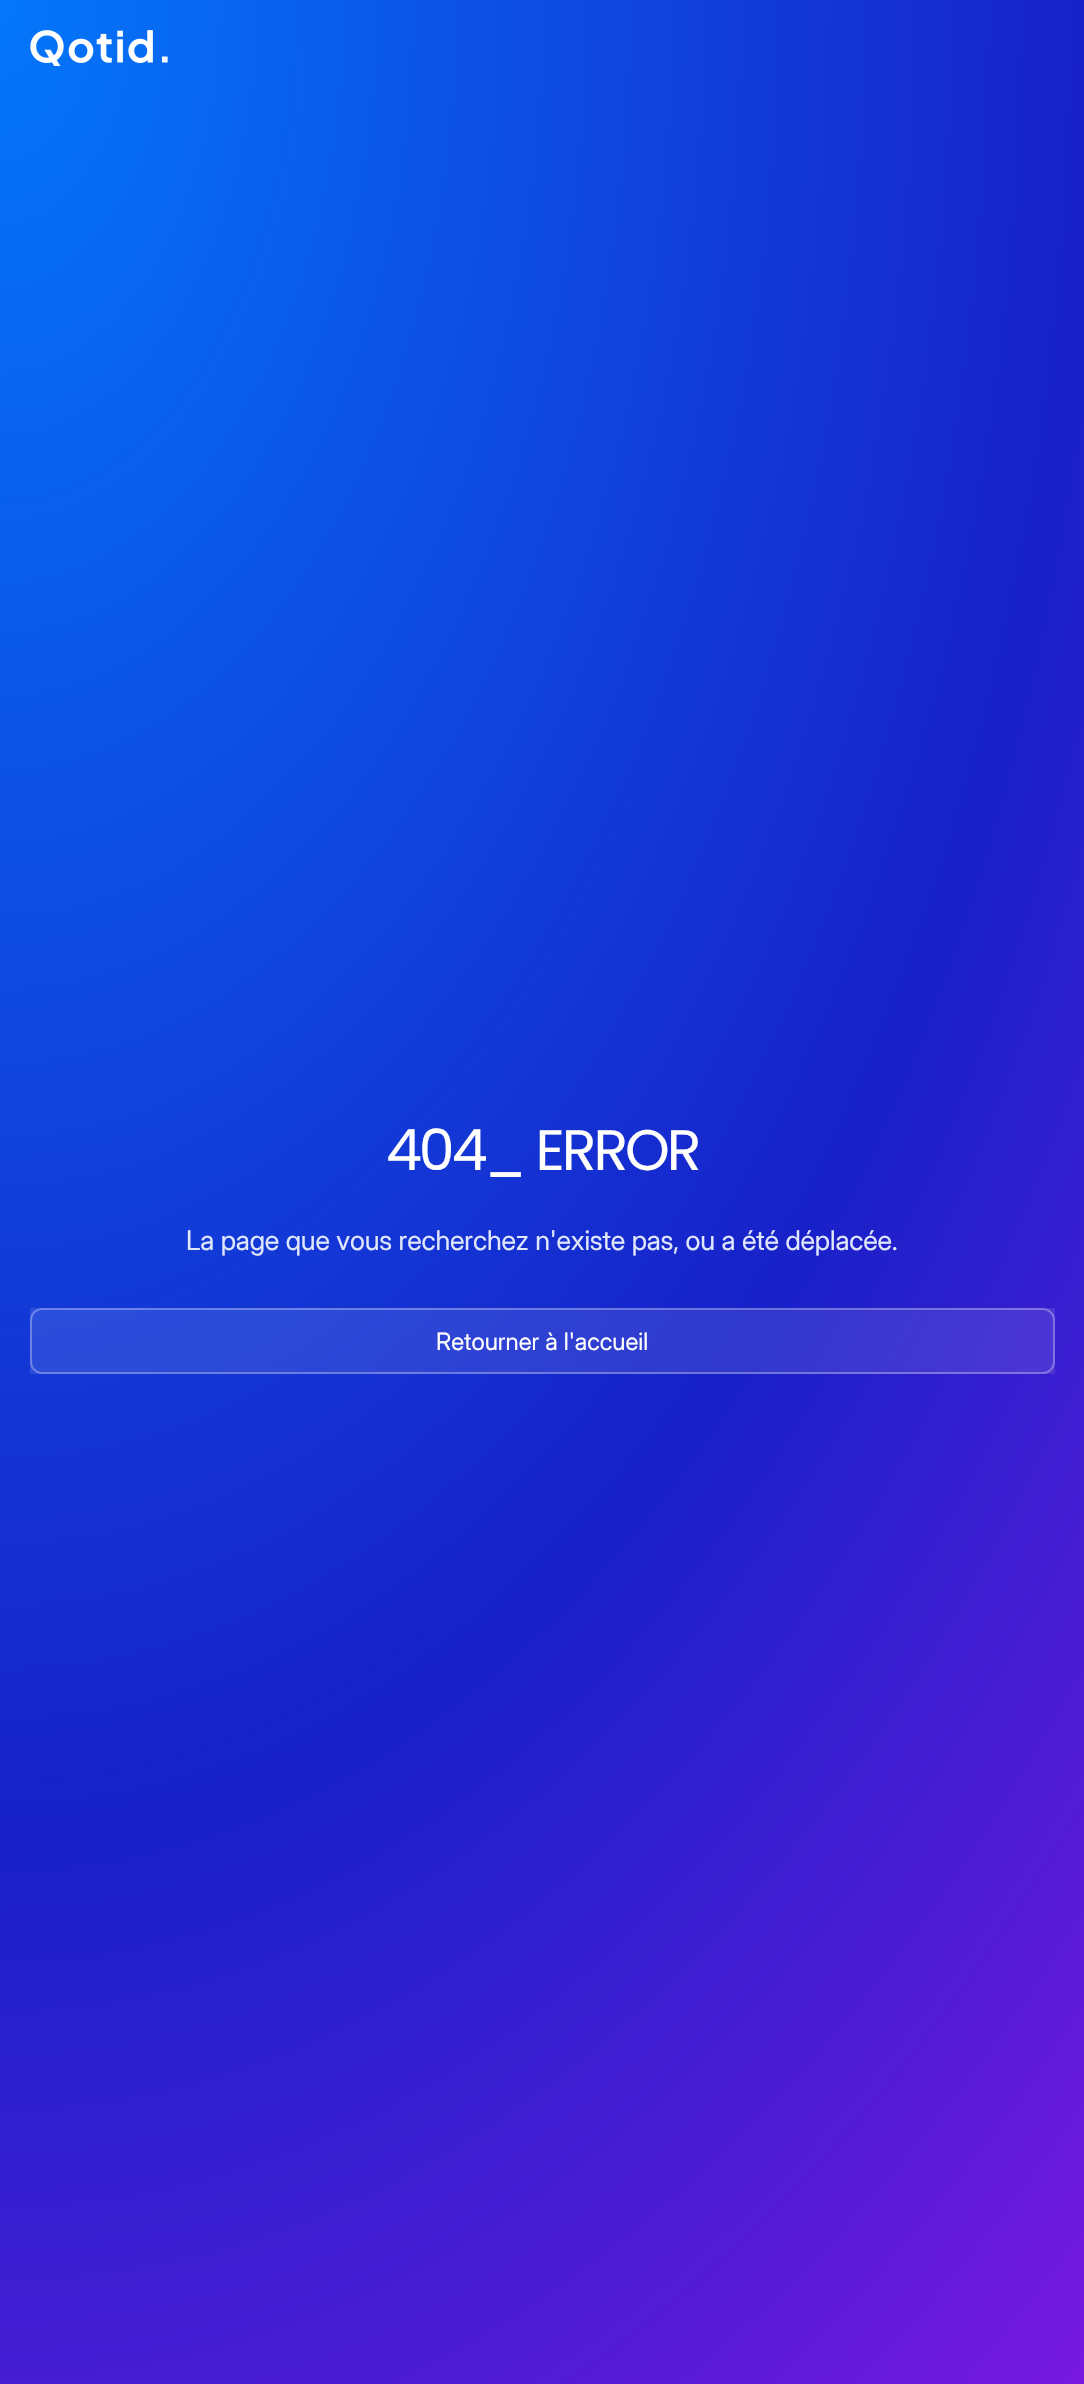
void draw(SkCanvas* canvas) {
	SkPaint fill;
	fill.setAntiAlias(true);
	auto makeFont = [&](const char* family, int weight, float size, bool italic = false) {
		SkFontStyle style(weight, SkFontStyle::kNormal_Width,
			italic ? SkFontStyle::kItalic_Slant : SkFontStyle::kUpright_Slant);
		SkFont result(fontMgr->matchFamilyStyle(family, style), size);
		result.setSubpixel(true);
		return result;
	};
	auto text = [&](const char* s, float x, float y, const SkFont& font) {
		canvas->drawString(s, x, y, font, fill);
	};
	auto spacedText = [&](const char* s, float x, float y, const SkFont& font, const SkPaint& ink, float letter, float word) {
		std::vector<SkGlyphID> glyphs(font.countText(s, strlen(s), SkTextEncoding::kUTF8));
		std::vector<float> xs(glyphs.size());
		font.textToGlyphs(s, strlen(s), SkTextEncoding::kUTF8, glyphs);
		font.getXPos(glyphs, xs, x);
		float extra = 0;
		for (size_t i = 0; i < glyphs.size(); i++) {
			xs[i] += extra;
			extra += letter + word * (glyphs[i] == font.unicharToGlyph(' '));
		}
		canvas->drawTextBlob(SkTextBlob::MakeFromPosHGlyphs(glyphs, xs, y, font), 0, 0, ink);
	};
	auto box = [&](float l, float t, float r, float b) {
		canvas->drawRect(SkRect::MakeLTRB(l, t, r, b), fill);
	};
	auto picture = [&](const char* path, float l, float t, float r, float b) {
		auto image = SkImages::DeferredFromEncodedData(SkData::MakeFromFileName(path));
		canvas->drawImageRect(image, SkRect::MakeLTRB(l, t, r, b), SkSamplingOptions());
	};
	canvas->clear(0xFFFFFFFF);
	{
		const SkColor colors[] = {0xFF0477FA, 0xFF1821C9, 0xFF7918DF, 0xFFFFFFFF};
		const float stops[] = {0, 0.6f, 0.99f, 1};
		SkMatrix m = SkMatrix::Translate(0, 0).preScale(1811, 3053);
		fill.setShader(SkGradientShader::MakeRadial({0, 0}, 1, colors, stops, 4, SkTileMode::kClamp, 0, &m));
		fill.setAlpha(255);
	}
	box(0, 0, 1084, 2384);
	picture("image0.png", 30, 30, 168, 66);
	fill.setShader(nullptr);
	fill.setColor(0x0DFFFFFF);
	box(30, 1308, 1055, 1374);
	box(30, 1308, 1055, 1374);
	fill.setStyle(SkPaint::kStroke_Style);
	fill.setStrokeWidth(2);
	fill.setColor(0x4DFFFFFF);
	canvas->drawRoundRect(SkRect::MakeLTRB(31, 1309, 1054, 1373), 11, 11, fill);
	auto font1 = makeFont("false", 400, 57);
	fill.setStyle(SkPaint::kFill_Style);
	fill.setColor(0xFFFFFFFF);
	spacedText("404_ ERROR", 386, 1170, font1, fill, -3, 0);
	auto font2 = makeFont("Inter Display", 400, 27);
	fill.setColor(0xFFE0E7FA);
	spacedText("La page que vous recherchez n'existe pas, ou a été déplacée.", 186, 1250, font2, fill, -0.15f, 0);
	auto font3 = makeFont("Inter Display", 400, 24);
	fill.setColor(0xFFFFFFFF);
	text("Retourner à l'accueil", 436, 1350, font3);
}
